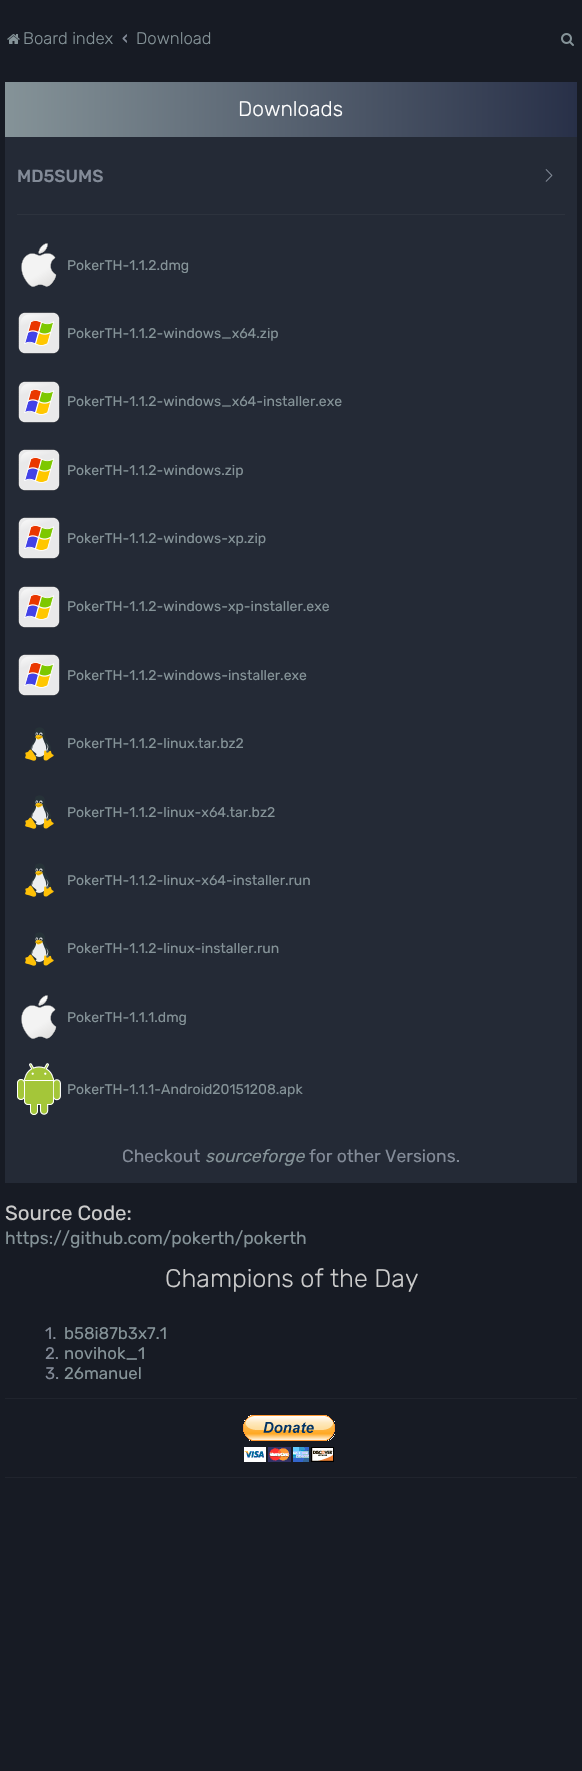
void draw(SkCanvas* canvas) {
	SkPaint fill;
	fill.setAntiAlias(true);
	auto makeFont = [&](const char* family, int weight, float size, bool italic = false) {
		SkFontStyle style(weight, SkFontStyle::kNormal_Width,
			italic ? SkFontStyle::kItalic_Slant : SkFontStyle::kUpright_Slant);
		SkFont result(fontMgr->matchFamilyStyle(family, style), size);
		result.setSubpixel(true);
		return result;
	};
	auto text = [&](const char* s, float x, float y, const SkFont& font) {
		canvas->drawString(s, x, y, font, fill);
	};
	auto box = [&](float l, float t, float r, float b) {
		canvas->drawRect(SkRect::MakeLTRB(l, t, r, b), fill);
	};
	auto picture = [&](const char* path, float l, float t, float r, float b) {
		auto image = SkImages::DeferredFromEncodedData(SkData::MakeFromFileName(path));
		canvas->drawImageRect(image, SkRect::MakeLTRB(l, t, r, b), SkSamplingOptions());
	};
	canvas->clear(0xFF171B24);
	picture("image0.png", 7, 34, 20, 44);
	picture("image1.png", 561, 33, 574, 46);
	{
		const SkColor colors[] = {0xFF859398, 0xFF283048};
		const float stops[] = {0, 1};
		const SkPoint ends[] = {{5, 110}, {577, 109}};
		fill.setShader(SkGradientShader::MakeLinear(ends, colors, stops, 2, SkTileMode::kClamp));
		fill.setAlpha(255);
	}
	box(5, 82, 577, 137);
	fill.setShader(nullptr);
	fill.setColor(0xFF242A36);
	box(5, 137, 577, 1183);
	picture("image2.png", 545, 169, 553, 182);
	fill.setColor(0xFF2D333E);
	box(17, 214, 565, 215);
	picture("image3.png", 21, 243, 57, 287);
	picture("image4.png", 18, 312, 60, 354);
	picture("image4.png", 18, 381, 60, 423);
	picture("image4.png", 18, 449, 60, 491);
	picture("image4.png", 18, 517, 60, 559);
	picture("image4.png", 18, 586, 60, 628);
	picture("image4.png", 18, 654, 60, 696);
	picture("image5.png", 25, 727, 54, 761);
	picture("image5.png", 25, 795, 54, 829);
	picture("image5.png", 25, 863, 54, 897);
	picture("image5.png", 25, 932, 54, 966);
	picture("image3.png", 21, 995, 57, 1039);
	picture("image6.png", 17, 1063, 61, 1115);
	fill.setColor(0xFF20242D);
	box(5, 1398, 577, 1399);
	picture("image7.png", 243, 1415, 335, 1462);
	box(5, 1477, 577, 1478);
	auto font1 = makeFont("Rubik", 300, 16.75f);
	fill.setColor(0xFF859398);
	text("Board index", 23, 44, font1);
	auto font2 = makeFont("Rubik", 500, 16.75f);
	fill.setColor(0xFF838B98);
	text("‹", 122, 44, font2);
	fill.setColor(0xFF859398);
	text("Download", 136, 44, font1);
	auto font3 = makeFont("Rubik", 300, 21);
	fill.setColor(0xFFFFFFFF);
	text("Downloads", 238, 116, font3);
	auto font4 = makeFont("Rubik", 500, 17.5f);
	fill.setColor(0xFF838B98);
	text("MD5SUMS", 17, 182, font4);
	auto font5 = makeFont("Rubik", 400, 14);
	fill.setColor(0xFF859398);
	text("PokerTH-1.1.2.dmg", 67, 270, font5);
	text("PokerTH-1.1.2-windows_x64.zip", 67, 338, font5);
	text("PokerTH-1.1.2-windows_x64-installer.exe", 67, 406, font5);
	text("PokerTH-1.1.2-windows.zip", 67, 475, font5);
	text("PokerTH-1.1.2-windows-xp.zip", 67, 543, font5);
	text("PokerTH-1.1.2-windows-xp-installer.exe", 67, 611, font5);
	text("PokerTH-1.1.2-windows-installer.exe", 67, 680, font5);
	text("PokerTH-1.1.2-linux.tar.bz2", 67, 748, font5);
	text("PokerTH-1.1.2-linux-x64.tar.bz2", 67, 817, font5);
	text("PokerTH-1.1.2-linux-x64-installer.run", 67, 885, font5);
	text("PokerTH-1.1.2-linux-installer.run", 67, 953, font5);
	text("PokerTH-1.1.1.dmg", 67, 1022, font5);
	text("PokerTH-1.1.1-Android20151208.apk", 67, 1094, font5);
	auto font6 = makeFont("Rubik", 400, 17.5f);
	fill.setColor(0xFF838B98);
	text("Checkout", 122, 1162, font6);
	auto font7 = makeFont("Rubik", 400, 17.5f, true);
	fill.setColor(0xFF859398);
	text("sourceforge", 205, 1162, font7);
	fill.setColor(0xFF838B98);
	text("for other Versions.", 309, 1162, font6);
	auto font8 = makeFont("Rubik", 400, 20.5f);
	fill.setColor(0xFFCCCCCC);
	text("Source Code:", 5, 1220, font8);
	fill.setColor(0xFF859398);
	text("https://github.com/pokerth/pokerth", 5, 1244, font6);
	auto font9 = makeFont("Rubik", 300, 25.25f);
	fill.setColor(0xFFCCCCCC);
	text("Champions of the Day", 165, 1287, font9);
	auto font10 = makeFont("Rubik", 400, 16.75f);
	fill.setColor(0xFF838B98);
	text("1.", 45, 1339, font10);
	fill.setColor(0xFF859398);
	text("b58i87b3x7.1", 64, 1339, font10);
	fill.setColor(0xFF838B98);
	text("2.", 45, 1359, font10);
	fill.setColor(0xFF859398);
	text("novihok_1", 64, 1359, font10);
	fill.setColor(0xFF838B98);
	text("3.", 45, 1379, font10);
	fill.setColor(0xFF859398);
	text("26manuel", 64, 1379, font10);
}
